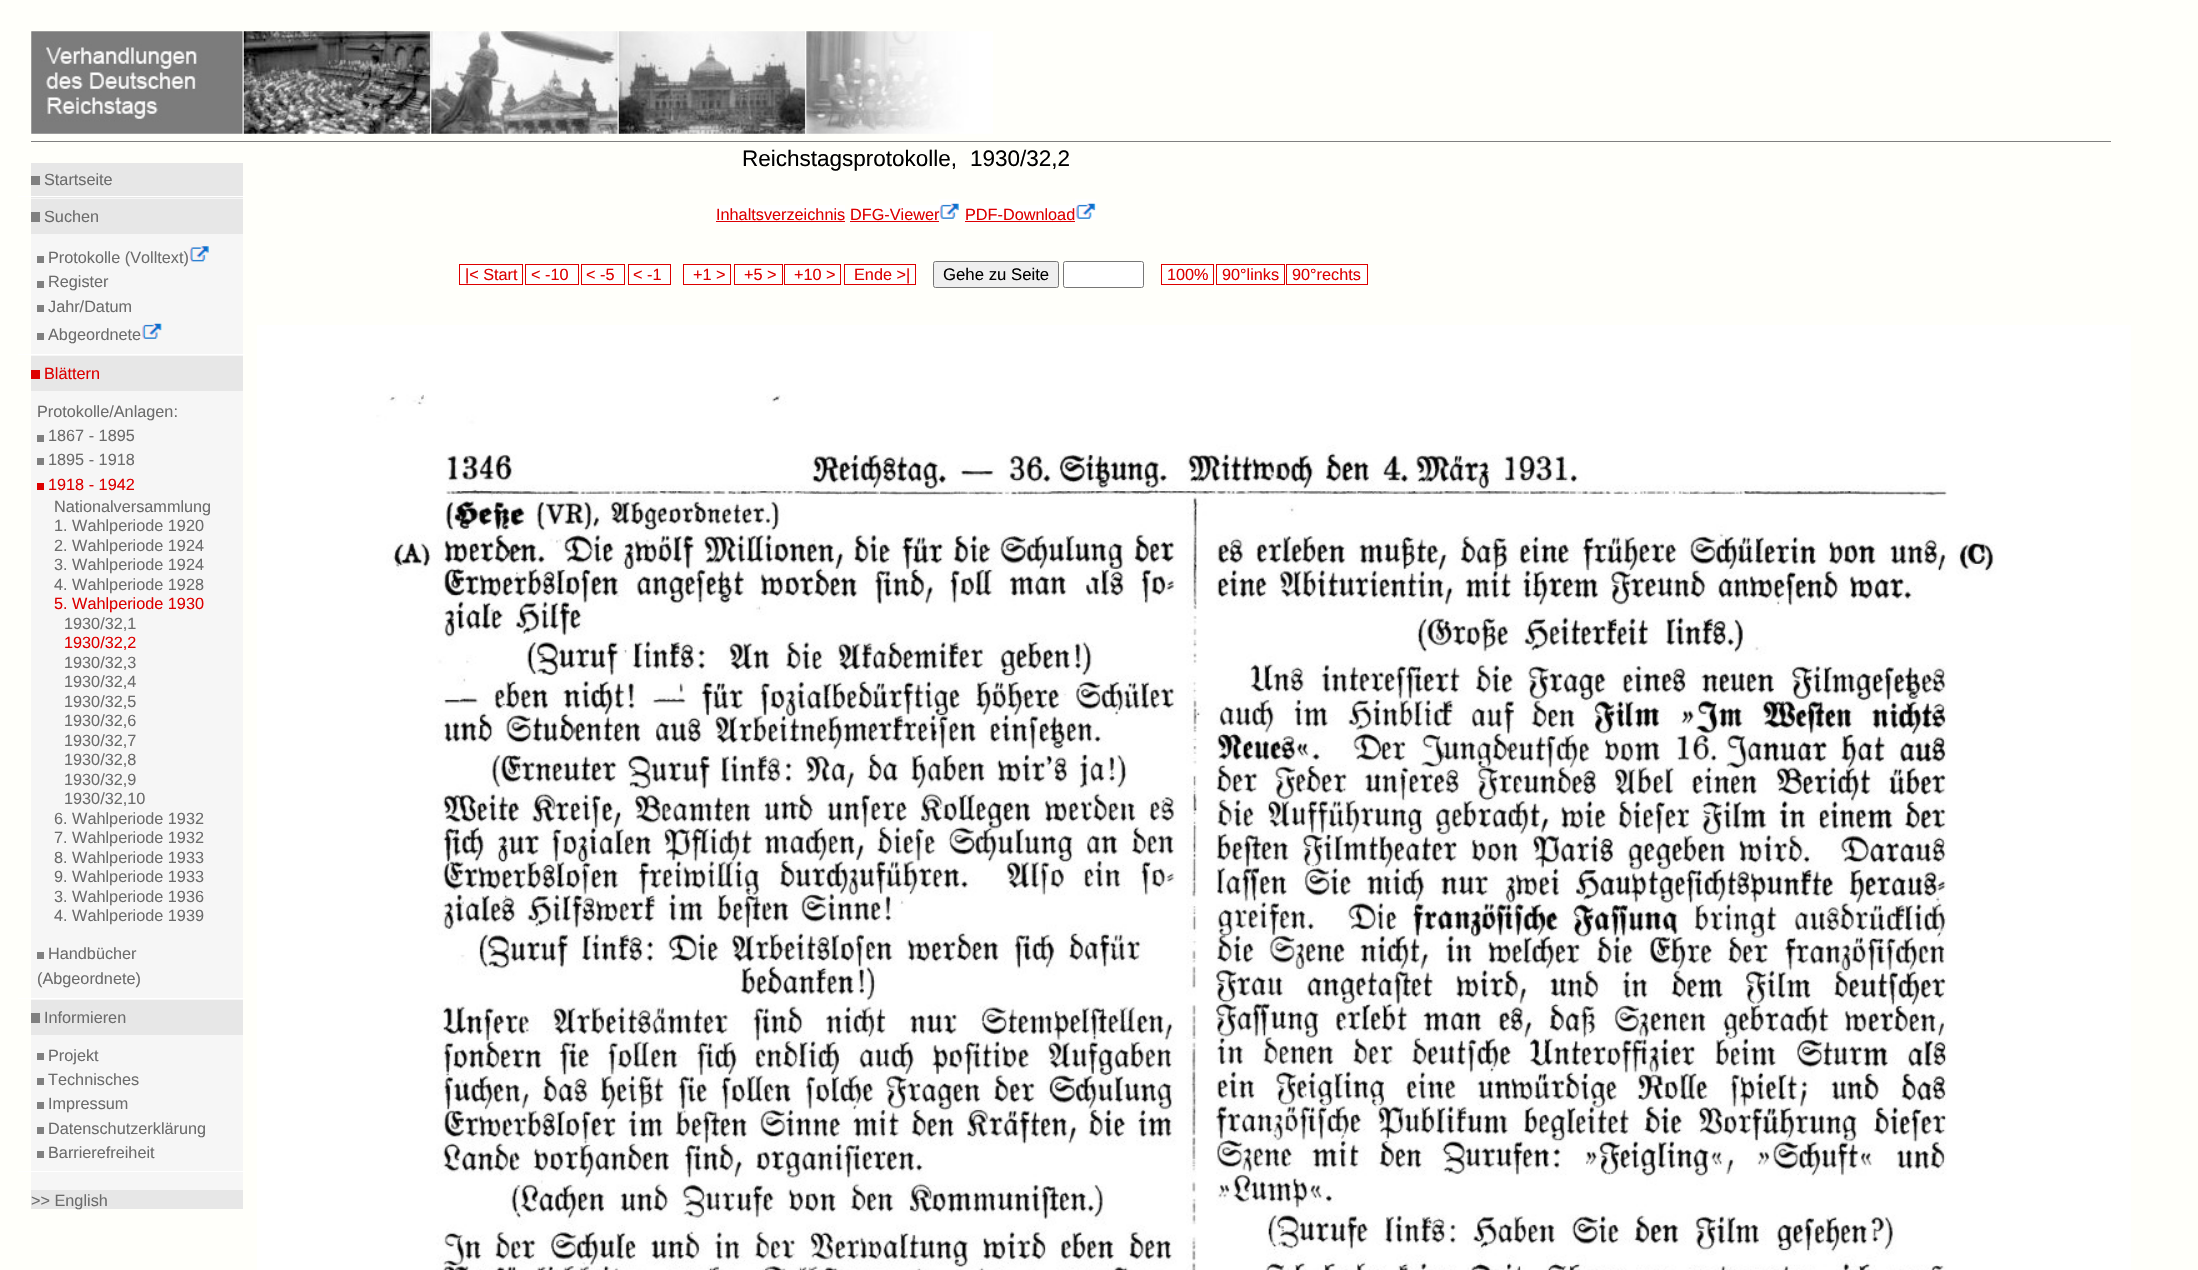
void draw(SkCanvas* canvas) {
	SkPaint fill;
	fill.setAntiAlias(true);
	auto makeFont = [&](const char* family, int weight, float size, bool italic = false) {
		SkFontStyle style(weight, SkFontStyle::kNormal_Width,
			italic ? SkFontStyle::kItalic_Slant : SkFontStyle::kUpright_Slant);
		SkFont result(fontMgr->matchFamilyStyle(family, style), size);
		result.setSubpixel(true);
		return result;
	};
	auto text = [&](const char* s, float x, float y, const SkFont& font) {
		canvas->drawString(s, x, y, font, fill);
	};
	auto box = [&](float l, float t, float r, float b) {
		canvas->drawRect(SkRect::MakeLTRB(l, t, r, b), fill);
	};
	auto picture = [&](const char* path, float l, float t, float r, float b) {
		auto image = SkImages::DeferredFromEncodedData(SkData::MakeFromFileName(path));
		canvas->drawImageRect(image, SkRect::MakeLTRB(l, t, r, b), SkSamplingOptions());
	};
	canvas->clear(0xFFFFFFFA);
	picture("image0.png", 31, 31, 993, 134);
	fill.setColor(0xFF808080);
	box(31, 141, 2111, 142);
	fill.setColor(0xFFF6F6F6);
	box(31, 198, 243, 1190);
	fill.setColor(0xFFE7E7E7);
	box(31, 163, 243, 198);
	fill.setColor(0xFF808080);
	box(31, 176, 40, 185);
	fill.setColor(0xFFFFFFFF);
	box(18, 196, 245, 197);
	fill.setColor(0xFFE7E7E7);
	box(31, 199, 243, 234);
	fill.setColor(0xFF808080);
	box(31, 212, 40, 222);
	box(37, 256, 44, 263);
	picture("image1.png", 189, 246, 209, 262);
	box(37, 281, 44, 288);
	box(37, 305, 44, 312);
	box(37, 333, 44, 340);
	picture("image2.png", 142, 323, 162, 339);
	fill.setColor(0xFFFFFFFF);
	box(18, 354, 245, 355);
	fill.setColor(0xFFE7E7E7);
	box(31, 356, 243, 391);
	fill.setColor(0xFFDE0000);
	box(31, 370, 40, 379);
	fill.setColor(0xFF808080);
	box(37, 435, 44, 442);
	box(37, 458, 44, 465);
	fill.setColor(0xFFDE0000);
	box(37, 483, 44, 490);
	fill.setColor(0xFF808080);
	box(37, 952, 44, 959);
	fill.setColor(0xFFFFFFFF);
	box(18, 998, 245, 999);
	fill.setColor(0xFFE7E7E7);
	box(31, 1000, 243, 1035);
	fill.setColor(0xFF808080);
	box(31, 1013, 40, 1023);
	box(37, 1053, 44, 1060);
	box(37, 1078, 44, 1085);
	box(37, 1102, 44, 1109);
	box(37, 1127, 44, 1134);
	box(37, 1151, 44, 1158);
	fill.setColor(0xFFFFFFFF);
	box(18, 1171, 245, 1172);
	fill.setColor(0xFFE7E7E7);
	box(31, 1190, 243, 1209);
	fill.setColor(0xFFFFFFFF);
	box(716, 205, 845, 224);
	fill.setColor(0xFFDD0000);
	box(716, 221, 845, 222);
	fill.setColor(0xFFFFFFFF);
	box(850, 205, 939, 224);
	box(939, 199, 960, 220);
	fill.setColor(0xFFDD0000);
	box(850, 221, 939, 222);
	picture("image3.png", 939, 203, 959, 219);
	fill.setColor(0xFFFFFFFF);
	box(965, 205, 1075, 224);
	box(1075, 199, 1096, 220);
	fill.setColor(0xFFDD0000);
	box(965, 221, 1075, 222);
	picture("image4.png", 1076, 203, 1096, 219);
	fill.setColor(0xFFFFFFFF);
	box(460, 265, 521, 284);
	fill.setStyle(SkPaint::kStroke_Style);
	fill.setStrokeWidth(1);
	fill.setColor(0xFFDD0000);
	canvas->drawRect(SkRect::MakeLTRB(459.5f, 264.5f, 522.5f, 284.5f), fill);
	fill.setStyle(SkPaint::kFill_Style);
	fill.setColor(0xFFFFFFFF);
	box(526, 265, 578, 284);
	fill.setStyle(SkPaint::kStroke_Style);
	fill.setColor(0xFFDD0000);
	canvas->drawRect(SkRect::MakeLTRB(525.5f, 264.5f, 578.5f, 284.5f), fill);
	fill.setStyle(SkPaint::kFill_Style);
	fill.setColor(0xFFFFFFFF);
	box(583, 265, 624, 284);
	fill.setStyle(SkPaint::kStroke_Style);
	fill.setColor(0xFFDD0000);
	canvas->drawRect(SkRect::MakeLTRB(581.5f, 264.5f, 624.5f, 284.5f), fill);
	fill.setStyle(SkPaint::kFill_Style);
	fill.setColor(0xFFFFFFFF);
	box(629, 265, 670, 284);
	fill.setStyle(SkPaint::kStroke_Style);
	fill.setColor(0xFFDD0000);
	canvas->drawRect(SkRect::MakeLTRB(628.5f, 264.5f, 670.5f, 284.5f), fill);
	fill.setStyle(SkPaint::kFill_Style);
	fill.setColor(0xFFFFFFFF);
	box(684, 265, 730, 284);
	fill.setStyle(SkPaint::kStroke_Style);
	fill.setColor(0xFFDD0000);
	canvas->drawRect(SkRect::MakeLTRB(683.5f, 264.5f, 730.5f, 284.5f), fill);
	fill.setStyle(SkPaint::kFill_Style);
	fill.setColor(0xFFFFFFFF);
	box(735, 265, 781, 284);
	fill.setStyle(SkPaint::kStroke_Style);
	fill.setColor(0xFFDD0000);
	canvas->drawRect(SkRect::MakeLTRB(734.5f, 264.5f, 782.5f, 284.5f), fill);
	fill.setStyle(SkPaint::kFill_Style);
	fill.setColor(0xFFFFFFFF);
	box(785, 265, 840, 284);
	fill.setStyle(SkPaint::kStroke_Style);
	fill.setColor(0xFFDD0000);
	canvas->drawRect(SkRect::MakeLTRB(784.5f, 264.5f, 840.5f, 284.5f), fill);
	fill.setStyle(SkPaint::kFill_Style);
	fill.setColor(0xFFFFFFFF);
	box(845, 265, 915, 284);
	fill.setStyle(SkPaint::kStroke_Style);
	fill.setColor(0xFFDD0000);
	canvas->drawRect(SkRect::MakeLTRB(844.5f, 264.5f, 915.5f, 284.5f), fill);
	fill.setStyle(SkPaint::kFill_Style);
	fill.setColor(0xFFEFEFEF);
	canvas->drawRoundRect(SkRect::MakeLTRB(933.5f, 261.5f, 1058.5f, 287.5f), 2, 2, fill);
	fill.setStyle(SkPaint::kStroke_Style);
	fill.setColor(0xFF767676);
	canvas->drawRoundRect(SkRect::MakeLTRB(933.5f, 261.5f, 1058.5f, 287.5f), 2, 2, fill);
	fill.setStyle(SkPaint::kFill_Style);
	fill.setColor(0xFFFFFFFF);
	canvas->drawRoundRect(SkRect::MakeLTRB(1063.5f, 261.5f, 1143.5f, 287.5f), 2, 2, fill);
	fill.setStyle(SkPaint::kStroke_Style);
	fill.setColor(0xFF767676);
	canvas->drawRoundRect(SkRect::MakeLTRB(1063.5f, 261.5f, 1143.5f, 287.5f), 2, 2, fill);
	fill.setStyle(SkPaint::kFill_Style);
	fill.setColor(0xFFFFFFFF);
	box(1163, 265, 1213, 284);
	fill.setStyle(SkPaint::kStroke_Style);
	fill.setColor(0xFFDD0000);
	canvas->drawRect(SkRect::MakeLTRB(1161.5f, 264.5f, 1213.5f, 284.5f), fill);
	fill.setStyle(SkPaint::kFill_Style);
	fill.setColor(0xFFFFFFFF);
	box(1218, 265, 1284, 284);
	fill.setStyle(SkPaint::kStroke_Style);
	fill.setColor(0xFFDD0000);
	canvas->drawRect(SkRect::MakeLTRB(1216.5f, 264.5f, 1284.5f, 284.5f), fill);
	fill.setStyle(SkPaint::kFill_Style);
	fill.setColor(0xFFFFFFFF);
	box(1288, 265, 1366, 284);
	fill.setStyle(SkPaint::kStroke_Style);
	fill.setColor(0xFFDD0000);
	canvas->drawRect(SkRect::MakeLTRB(1286.5f, 264.5f, 1367.5f, 284.5f), fill);
	picture("image5.png", 257, 325, 2131, 1270);
	auto font1 = makeFont("Liberation Sans", 400, 16.25f);
	fill.setStyle(SkPaint::kFill_Style);
	fill.setColor(0xFF6C6C6C);
	text("Startseite", 44, 185, font1);
	text("Suchen", 44, 222, font1);
	text("Protokolle (Volltext)", 48, 263, font1);
	text("Register", 48, 287, font1);
	text("Jahr/Datum", 48, 312, font1);
	text("Abgeordnete", 48, 340, font1);
	fill.setColor(0xFFDD0000);
	text("Blättern", 44, 379, font1);
	fill.setColor(0xFF6C6C6C);
	text("Protokolle/Anlagen:", 37, 417, font1);
	text("1867 - 1895", 48, 441, font1);
	text("1895 - 1918", 48, 465, font1);
	fill.setColor(0xFFDD0000);
	text("1918 - 1942", 48, 490, font1);
	fill.setColor(0xFF6C6C6C);
	text("Nationalversammlung", 54, 512, font1);
	text("1. Wahlperiode 1920", 54, 531, font1);
	text("2. Wahlperiode 1924", 54, 551, font1);
	text("3. Wahlperiode 1924", 54, 570, font1);
	text("4. Wahlperiode 1928", 54, 590, font1);
	fill.setColor(0xFFDD0000);
	text("5. Wahlperiode 1930", 54, 609, font1);
	fill.setColor(0xFF6C6C6C);
	text("1930/32,1", 64, 629, font1);
	fill.setColor(0xFFDD0000);
	text("1930/32,2", 64, 648, font1);
	fill.setColor(0xFF6C6C6C);
	text("1930/32,3", 64, 668, font1);
	text("1930/32,4", 64, 687, font1);
	text("1930/32,5", 64, 707, font1);
	text("1930/32,6", 64, 726, font1);
	text("1930/32,7", 64, 746, font1);
	text("1930/32,8", 64, 765, font1);
	text("1930/32,9", 64, 785, font1);
	text("1930/32,10", 64, 804, font1);
	text("6. Wahlperiode 1932", 54, 824, font1);
	text("7. Wahlperiode 1932", 54, 843, font1);
	text("8. Wahlperiode 1933", 54, 863, font1);
	text("9. Wahlperiode 1933", 54, 882, font1);
	text("3. Wahlperiode 1936", 54, 902, font1);
	text("4. Wahlperiode 1939", 54, 921, font1);
	text("Handbücher", 48, 959, font1);
	text("(Abgeordnete)", 37, 984, font1);
	text("Informieren", 44, 1023, font1);
	text("Projekt", 48, 1061, font1);
	text("Technisches", 48, 1085, font1);
	text("Impressum", 48, 1109, font1);
	text("Datenschutzerklärung", 48, 1134, font1);
	text("Barrierefreiheit", 48, 1158, font1);
	text(">> English", 31, 1206, font1);
	auto font2 = makeFont("Liberation Sans", 400, 22.5f);
	fill.setColor(0xFF000000);
	text("Reichstagsprotokolle,", 742, 166, font2);
	text("1930/32,2", 970, 166, font2);
	fill.setColor(0xFFDD0000);
	text("Inhaltsverzeichnis", 716, 220, font1);
	text("DFG-Viewer", 850, 220, font1);
	text("PDF-Download", 965, 220, font1);
	text("|< Start", 465, 280, font1);
	text("< -10", 531, 280, font1);
	text("< -5", 586, 280, font1);
	text("< -1", 633, 280, font1);
	text("+1 >", 693, 280, font1);
	text("+5 >", 744, 280, font1);
	text("+10 >", 794, 280, font1);
	text("Ende >|", 854, 280, font1);
	auto font3 = makeFont("Liberation Sans", 400, 16.75f);
	fill.setColor(0xFF000000);
	text("Gehe zu Seite", 943, 280, font3);
	fill.setColor(0xFFDD0000);
	text("100%", 1167, 280, font1);
	text("90°links", 1222, 280, font1);
	text("90°rechts", 1292, 280, font1);
}
